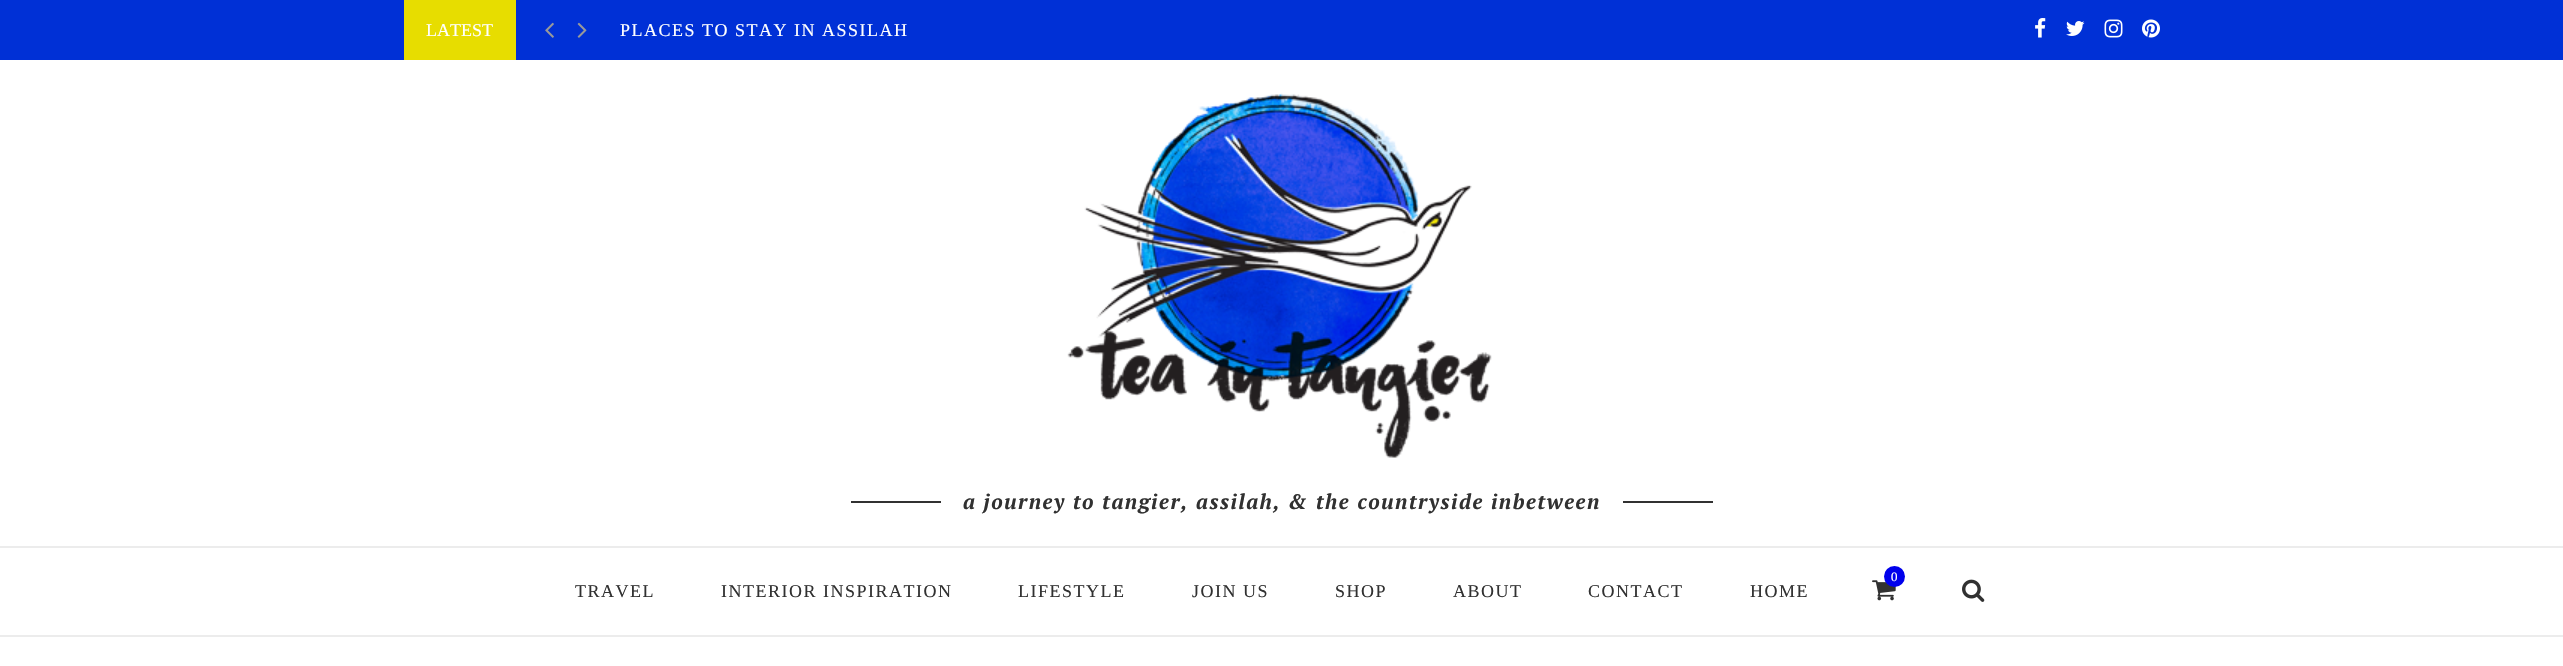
void draw(SkCanvas* canvas) {
	SkPaint fill;
	fill.setAntiAlias(true);
	auto makeFont = [&](const char* family, int weight, float size, bool italic = false) {
		SkFontStyle style(weight, SkFontStyle::kNormal_Width,
			italic ? SkFontStyle::kItalic_Slant : SkFontStyle::kUpright_Slant);
		SkFont result(fontMgr->matchFamilyStyle(family, style), size);
		result.setSubpixel(true);
		return result;
	};
	auto text = [&](const char* s, float x, float y, const SkFont& font) {
		canvas->drawString(s, x, y, font, fill);
	};
	auto spacedText = [&](const char* s, float x, float y, const SkFont& font, const SkPaint& ink, float letter, float word) {
		std::vector<SkGlyphID> glyphs(font.countText(s, strlen(s), SkTextEncoding::kUTF8));
		std::vector<float> xs(glyphs.size());
		font.textToGlyphs(s, strlen(s), SkTextEncoding::kUTF8, glyphs);
		font.getXPos(glyphs, xs, x);
		float extra = 0;
		for (size_t i = 0; i < glyphs.size(); i++) {
			xs[i] += extra;
			extra += letter + word * (glyphs[i] == font.unicharToGlyph(' '));
		}
		canvas->drawTextBlob(SkTextBlob::MakeFromPosHGlyphs(glyphs, xs, y, font), 0, 0, ink);
	};
	auto box = [&](float l, float t, float r, float b) {
		canvas->drawRect(SkRect::MakeLTRB(l, t, r, b), fill);
	};
	auto picture = [&](const char* path, float l, float t, float r, float b) {
		auto image = SkImages::DeferredFromEncodedData(SkData::MakeFromFileName(path));
		canvas->drawImageRect(image, SkRect::MakeLTRB(l, t, r, b), SkSamplingOptions());
	};
	canvas->clear(0xFFFFFFFF);
	fill.setColor(0xFF0030D6);
	box(0, 0, 2563, 60);
	fill.setColor(0xFFE7DD00);
	box(404, 0, 516, 60);
	picture("image0.png", 545, 22, 554, 38);
	picture("image1.png", 577, 22, 587, 38);
	picture("image2.png", 2035, 18, 2046, 38);
	picture("image3.png", 2066, 21, 2085, 36);
	picture("image4.png", 2104, 19, 2123, 38);
	picture("image5.png", 2142, 19, 2160, 38);
	picture("image6.png", 1067, 93, 1492, 458);
	fill.setColor(0xFF313131);
	box(851, 501, 941, 503);
	box(1623, 501, 1713, 503);
	fill.setColor(0xFFECECEC);
	box(0, 546, 2563, 548);
	box(0, 635, 2563, 637);
	picture("image7.png", 1872, 580, 1896, 601);
	fill.setColor(0xFF0000EC);
	canvas->drawCircle(1894.5f, 576.5f, 10.5f, fill);
	picture("image8.png", 1962, 579, 1985, 602);
	auto font1 = makeFont("Liberation Serif", 400, 18);
	fill.setColor(0xFFFFFFFF);
	text("LATEST", 426, 36, font1);
	spacedText("PLACES TO STAY IN ASSILAH", 620, 36, font1, fill, 1.5f, 0);
	auto font2 = makeFont("PT Serif", 700, 21, true);
	fill.setColor(0xFF313131);
	spacedText("a journey to tangier, assilah, & the countryside inbetween", 963, 509, font2, fill, 1.5f, 0);
	auto font3 = makeFont("PT Serif", 400, 12);
	fill.setColor(0xFFFFFFFF);
	text("0", 1891, 581, font3);
	fill.setColor(0xFF313131);
	spacedText("TRAVEL", 575, 597, font1, fill, 1.5f, 0);
	spacedText("INTERIOR INSPIRATION", 721, 597, font1, fill, 1.5f, 0);
	spacedText("LIFESTYLE", 1018, 597, font1, fill, 1.5f, 0);
	spacedText("JOIN US", 1192, 597, font1, fill, 1.5f, 0);
	spacedText("SHOP", 1335, 597, font1, fill, 1.5f, 0);
	spacedText("ABOUT", 1453, 597, font1, fill, 1.5f, 0);
	spacedText("CONTACT", 1588, 597, font1, fill, 1.5f, 0);
	spacedText("HOME", 1750, 597, font1, fill, 1.5f, 0);
}
